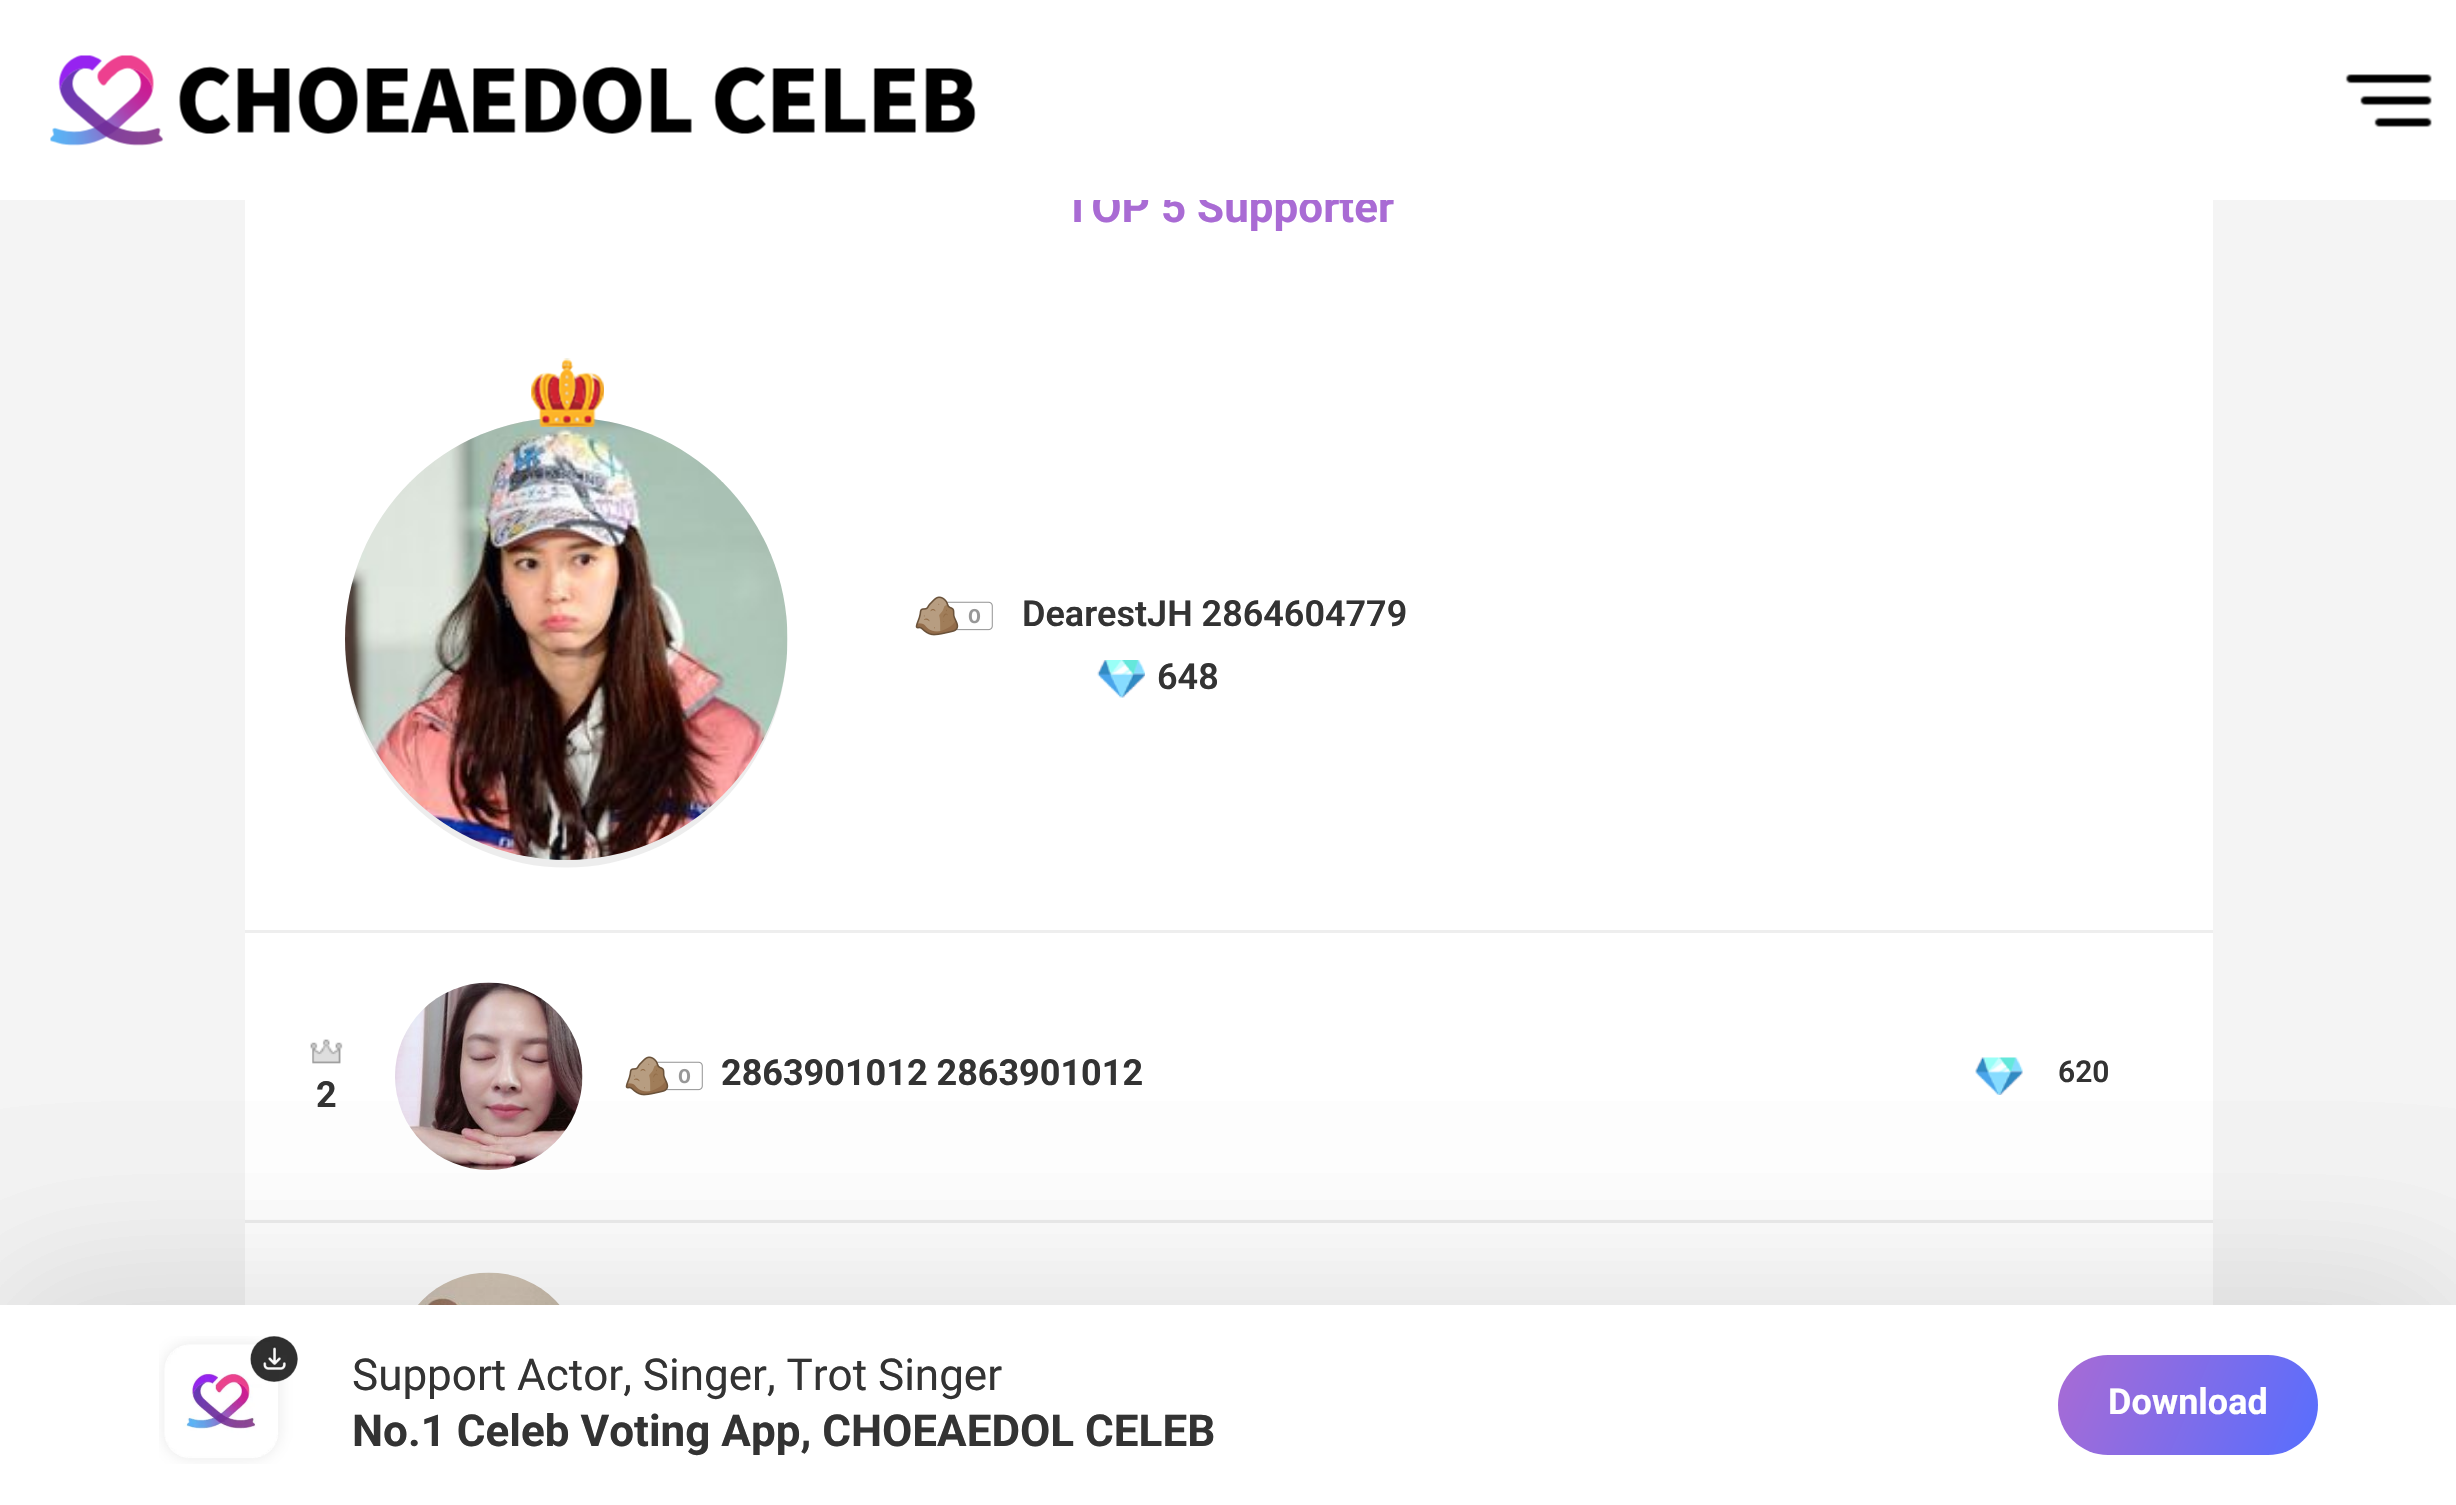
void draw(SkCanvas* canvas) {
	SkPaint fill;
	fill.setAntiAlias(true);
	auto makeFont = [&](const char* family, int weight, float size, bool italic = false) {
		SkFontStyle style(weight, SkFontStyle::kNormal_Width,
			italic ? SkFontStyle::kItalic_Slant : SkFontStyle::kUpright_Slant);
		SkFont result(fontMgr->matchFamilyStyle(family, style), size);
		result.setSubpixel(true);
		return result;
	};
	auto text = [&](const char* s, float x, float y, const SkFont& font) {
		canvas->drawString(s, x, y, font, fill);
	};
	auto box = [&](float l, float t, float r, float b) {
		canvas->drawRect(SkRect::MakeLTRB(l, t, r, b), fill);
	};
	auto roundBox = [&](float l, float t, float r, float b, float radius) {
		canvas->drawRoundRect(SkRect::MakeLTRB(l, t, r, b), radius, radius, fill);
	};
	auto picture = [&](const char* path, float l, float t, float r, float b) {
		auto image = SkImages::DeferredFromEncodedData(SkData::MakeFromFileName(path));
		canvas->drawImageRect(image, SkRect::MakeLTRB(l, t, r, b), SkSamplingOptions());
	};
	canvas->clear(0xFFF4F4F4);
	fill.setColor(0xFFFFFFFF);
	box(245, 200, 2213, 1305);
	fill.setColor(0xFFEEEEEE);
	box(245, 930, 2213, 933);
	fill.setColor(0xFFEDEDED);
	canvas->drawOval(SkRect::MakeLTRB(345, 417.5f, 787, 867.5f), fill);
	picture("image3.png", 345, 419, 788, 860);
	picture("image2.png", 531, 358, 604, 427);
	picture("image4.png", 915, 596, 993, 636);
	picture("image5.png", 1097, 660, 1145, 698);
	fill.setColor(0xFFEEEEEE);
	box(245, 1220, 2213, 1223);
	picture("image6.png", 395, 982, 583, 1170);
	picture("image4.png", 625, 1056, 703, 1096);
	picture("image7.png", 1975, 1057, 2023, 1095);
	picture("image8.png", 310, 1039, 343, 1064);
	picture("image9.png", 418, 1272, 560, 1305);
	fill.setColor(0x0F000000);
	fill.setMaskFilter(SkMaskFilter::MakeBlur(kNormal_SkBlurStyle, 75));
	canvas->drawRect(SkRect::MakeLTRB(0, 1280, 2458, 1480), fill);
	fill.setMaskFilter(nullptr);
	fill.setMaskFilter(SkMaskFilter::MakeBlur(kNormal_SkBlurStyle, 75));
	canvas->drawRect(SkRect::MakeLTRB(0, 1280, 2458, 1480), fill);
	fill.setMaskFilter(nullptr);
	fill.setColor(0xFFFFFFFF);
	box(0, 1305, 2456, 1505);
	picture("image10.png", 159, 1336, 298, 1464);
	{
		const SkColor colors[] = {0xFFA96BD4, 0xFF556EFF};
		const float stops[] = {0, 1};
		const SkPoint ends[] = {{2059, 1351}, {2321, 1462}};
		fill.setShader(SkGradientShader::MakeLinear(ends, colors, stops, 2, SkTileMode::kClamp));
		fill.setAlpha(255);
	}
	roundBox(2058, 1355, 2318, 1455, 50);
	auto font1 = makeFont("Roboto", 700, 44);
	fill.setShader(nullptr);
	fill.setColor(0xFFA96BD4);
	text("TOP 5 Supporter", 1064, 222, font1);
	fill.setColor(0xFFFFFFFF);
	box(0, 0, 2456, 200);
	picture("image1.png", 2345, 74, 2432, 128);
	picture("image0.png", 50, 55, 976, 146);
	auto font2 = makeFont("Roboto", 600, 36);
	fill.setColor(0xFF333333);
	text("DearestJH 2864604779", 1022, 626, font2);
	text("648", 1157, 689, font2);
	auto font3 = makeFont("Roboto", 700, 36);
	text("2863901012 2863901012", 721, 1085, font3);
	auto font4 = makeFont("Roboto", 600, 30);
	text("620", 2058, 1082, font4);
	text("2", 316, 1107, font3);
	auto font5 = makeFont("Roboto", 400, 44);
	text("Support Actor, Singer, Trot Singer", 352, 1390, font5);
	text("No.1 Celeb Voting App, CHOEAEDOL CELEB", 352, 1446, font1);
	fill.setColor(0xFFFFFFFF);
	text("Download", 2108, 1414, font3);
}
